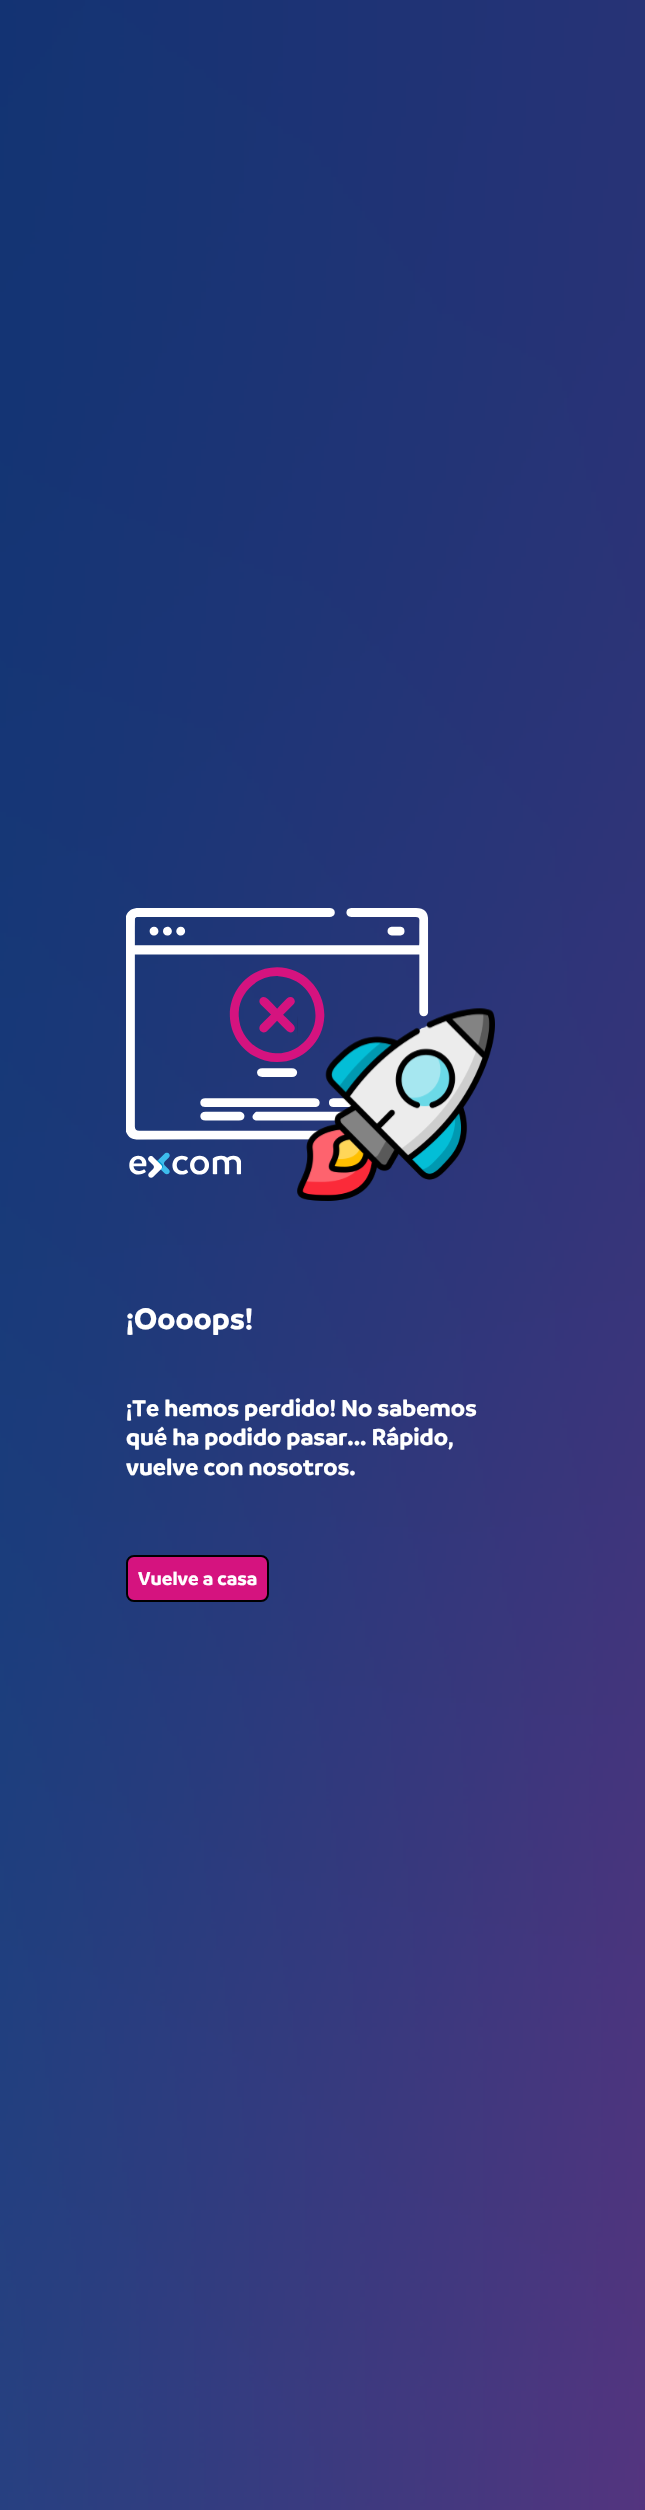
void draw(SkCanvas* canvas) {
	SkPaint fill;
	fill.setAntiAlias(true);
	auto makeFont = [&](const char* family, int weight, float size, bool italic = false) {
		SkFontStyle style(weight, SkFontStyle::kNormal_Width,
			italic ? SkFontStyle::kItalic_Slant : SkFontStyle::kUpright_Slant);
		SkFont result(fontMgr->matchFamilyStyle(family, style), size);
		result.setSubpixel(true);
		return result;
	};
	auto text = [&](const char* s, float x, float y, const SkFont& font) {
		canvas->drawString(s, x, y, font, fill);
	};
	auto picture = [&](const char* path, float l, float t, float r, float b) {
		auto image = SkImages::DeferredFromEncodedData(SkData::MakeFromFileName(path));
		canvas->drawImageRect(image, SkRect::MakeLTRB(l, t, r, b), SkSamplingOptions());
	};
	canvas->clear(0xFFFFFFFF);
	picture("image0.png", 0, 0, 645, 2510);
	picture("image1.png", 126, 908, 495, 1201);
	fill.setColor(0xFFD5137F);
	canvas->drawRoundRect(SkRect::MakeLTRB(127, 1556, 268, 1601), 7, 7, fill);
	fill.setStyle(SkPaint::kStroke_Style);
	fill.setStrokeWidth(2);
	fill.setColor(0xFF000000);
	canvas->drawRoundRect(SkRect::MakeLTRB(127, 1556, 268, 1601), 7, 7, fill);
	auto font1 = makeFont("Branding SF", 700, 31.5f);
	fill.setStyle(SkPaint::kFill_Style);
	fill.setColor(0xFFFFFFFF);
	text("¡Oooops!", 126, 1329, font1);
	auto font2 = makeFont("Branding SF", 700, 24.7f);
	text("¡Te hemos perdido! No sabemos", 126, 1416, font2);
	text("qué ha podido pasar... Rápido,", 126, 1445, font2);
	text("vuelve con nosotros.", 126, 1475, font2);
	auto font3 = makeFont("Branding SF", 700, 20);
	text("Vuelve a casa", 138, 1585, font3);
}
